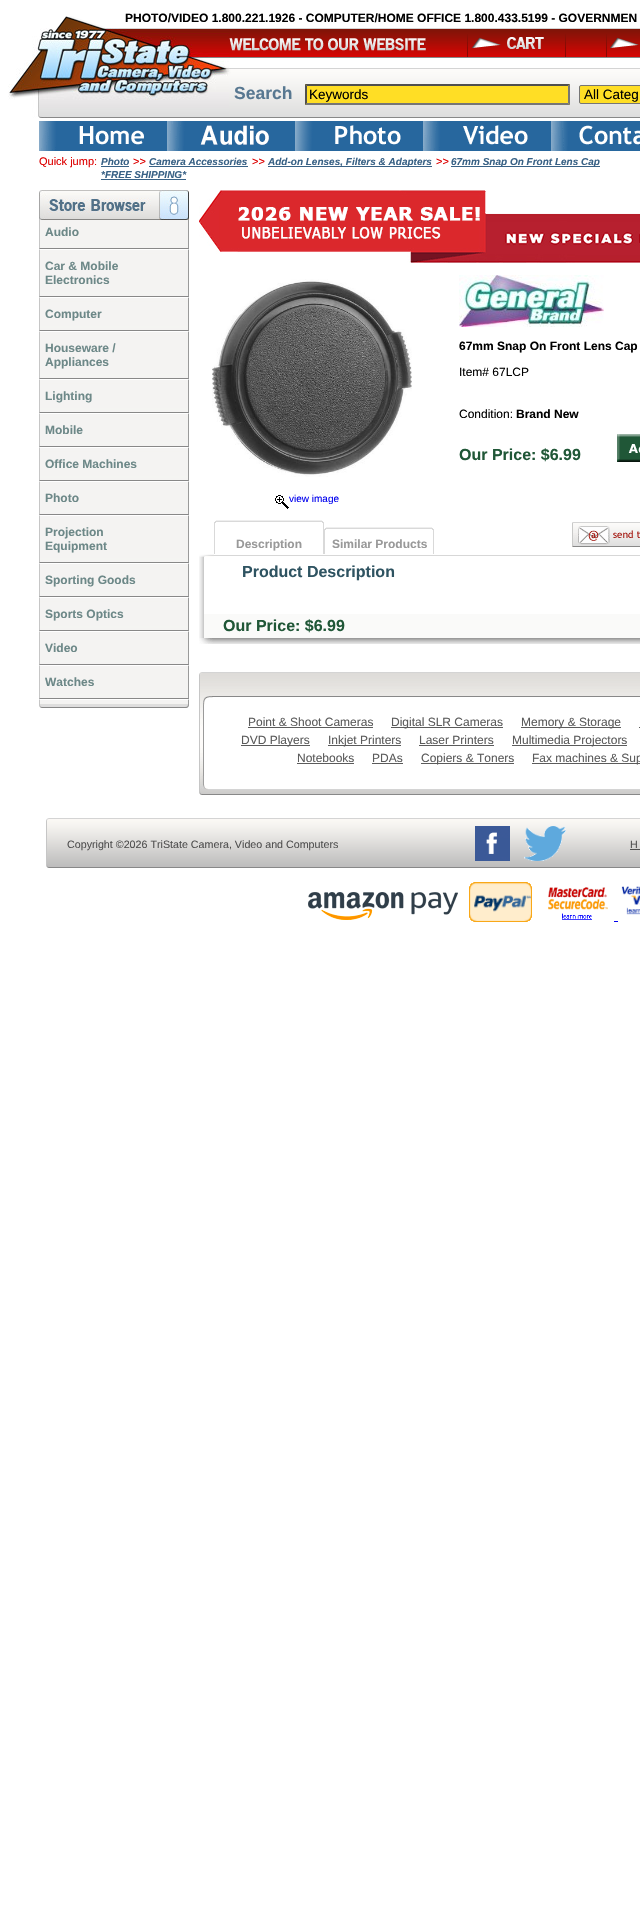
void draw(SkCanvas* canvas) {
	SkPaint fill;
	fill.setAntiAlias(true);
	auto makeFont = [&](const char* family, int weight, float size, bool italic = false) {
		SkFontStyle style(weight, SkFontStyle::kNormal_Width,
			italic ? SkFontStyle::kItalic_Slant : SkFontStyle::kUpright_Slant);
		SkFont result(fontMgr->matchFamilyStyle(family, style), size);
		result.setSubpixel(true);
		return result;
	};
	auto text = [&](const char* s, float x, float y, const SkFont& font) {
		canvas->drawString(s, x, y, font, fill);
	};
	auto box = [&](float l, float t, float r, float b) {
		canvas->drawRect(SkRect::MakeLTRB(l, t, r, b), fill);
	};
	auto picture = [&](const char* path, float l, float t, float r, float b) {
		auto image = SkImages::DeferredFromEncodedData(SkData::MakeFromFileName(path));
		canvas->drawImageRect(image, SkRect::MakeLTRB(l, t, r, b), SkSamplingOptions());
	};
	canvas->clear(0xFFFFFFFF);
	picture("image0.png", 57, 16, 105, 28);
	picture("image1.png", 8, 28, 229, 118);
	picture("image2.png", 229, 28, 640, 58);
	picture("image3.png", 467, 34, 566, 57);
	picture("image4.png", 606, 34, 639, 57);
	picture("image5.png", 229, 68, 640, 118);
	fill.setColor(0xFFFFDE25);
	box(305, 84, 570, 105);
	fill.setColor(0xFF4F4F4F);
	canvas->drawPath(SkPathBuilder().moveTo(305, 84).lineTo(570, 84).lineTo(568, 86).lineTo(307, 86).close().detach(), fill);
	fill.setColor(0xFF767676);
	canvas->drawPath(SkPathBuilder().moveTo(570, 84).lineTo(570, 105).lineTo(568, 103).lineTo(568, 86).close().detach(), fill);
	canvas->drawPath(SkPathBuilder().moveTo(570, 105).lineTo(305, 105).lineTo(307, 103).lineTo(568, 103).close().detach(), fill);
	fill.setColor(0xFF4F4F4F);
	canvas->drawPath(SkPathBuilder().moveTo(305, 105).lineTo(305, 84).lineTo(307, 86).lineTo(307, 103).close().detach(), fill);
	fill.setColor(0xFFFFDE25);
	canvas->drawRoundRect(SkRect::MakeLTRB(579.5f, 85.5f, 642.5f, 103.5f), 1.5f, 1.5f, fill);
	fill.setStyle(SkPaint::kStroke_Style);
	fill.setStrokeWidth(1);
	fill.setColor(0xFF767676);
	canvas->drawRoundRect(SkRect::MakeLTRB(579.5f, 85.5f, 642.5f, 103.5f), 1.5f, 1.5f, fill);
	picture("image6.png", 39, 121, 167, 151);
	picture("image7.png", 167, 121, 295, 151);
	picture("image8.png", 295, 121, 423, 151);
	picture("image9.png", 423, 121, 551, 151);
	picture("image10.png", 551, 121, 640, 151);
	fill.setStyle(SkPaint::kFill_Style);
	fill.setColor(0xFF386185);
	box(101, 166, 129, 167);
	box(149, 166, 248, 167);
	box(268, 166, 432, 167);
	box(451, 166, 600, 167);
	box(101, 179, 186, 180);
	fill.setColor(0xFFF4F3F2);
	box(40, 220, 188, 694);
	picture("image11.png", 39, 190, 189, 220);
	fill.setColor(0xFFC6C6C6);
	box(39, 220, 40, 244);
	fill.setColor(0xFF9A9A9A);
	box(188, 220, 189, 244);
	picture("image12.png", 39, 244, 189, 254);
	fill.setColor(0xFFC6C6C6);
	box(39, 254, 40, 292);
	fill.setColor(0xFF9A9A9A);
	box(188, 254, 189, 292);
	picture("image12.png", 39, 292, 189, 302);
	fill.setColor(0xFFC6C6C6);
	box(39, 302, 40, 326);
	fill.setColor(0xFF9A9A9A);
	box(188, 302, 189, 326);
	picture("image12.png", 39, 326, 189, 336);
	fill.setColor(0xFFC6C6C6);
	box(39, 336, 40, 374);
	fill.setColor(0xFF9A9A9A);
	box(188, 336, 189, 374);
	picture("image12.png", 39, 374, 189, 384);
	fill.setColor(0xFFC6C6C6);
	box(39, 384, 40, 408);
	fill.setColor(0xFF9A9A9A);
	box(188, 384, 189, 408);
	picture("image12.png", 39, 408, 189, 418);
	fill.setColor(0xFFC6C6C6);
	box(39, 418, 40, 442);
	fill.setColor(0xFF9A9A9A);
	box(188, 418, 189, 442);
	picture("image12.png", 39, 442, 189, 452);
	fill.setColor(0xFFC6C6C6);
	box(39, 452, 40, 476);
	fill.setColor(0xFF9A9A9A);
	box(188, 452, 189, 476);
	picture("image12.png", 39, 476, 189, 486);
	fill.setColor(0xFFC6C6C6);
	box(39, 486, 40, 510);
	fill.setColor(0xFF9A9A9A);
	box(188, 486, 189, 510);
	picture("image12.png", 39, 510, 189, 520);
	fill.setColor(0xFFC6C6C6);
	box(39, 520, 40, 558);
	fill.setColor(0xFF9A9A9A);
	box(188, 520, 189, 558);
	picture("image12.png", 39, 558, 189, 568);
	fill.setColor(0xFFC6C6C6);
	box(39, 568, 40, 592);
	fill.setColor(0xFF9A9A9A);
	box(188, 568, 189, 592);
	picture("image12.png", 39, 592, 189, 602);
	fill.setColor(0xFFC6C6C6);
	box(39, 602, 40, 626);
	fill.setColor(0xFF9A9A9A);
	box(188, 602, 189, 626);
	picture("image12.png", 39, 626, 189, 636);
	fill.setColor(0xFFC6C6C6);
	box(39, 636, 40, 660);
	fill.setColor(0xFF9A9A9A);
	box(188, 636, 189, 660);
	picture("image12.png", 39, 660, 189, 670);
	fill.setColor(0xFFC6C6C6);
	box(39, 670, 40, 694);
	fill.setColor(0xFF9A9A9A);
	box(188, 670, 189, 694);
	picture("image12.png", 39, 694, 189, 704);
	picture("image13.png", 39, 704, 189, 708);
	picture("image14.png", 199, 190, 640, 263);
	picture("image15.png", 459, 275, 604, 327);
	picture("image16.png", 617, 434, 640, 462);
	picture("image17.png", 212, 279, 412, 477);
	picture("image18.png", 275, 495, 289, 509);
	picture("image19.png", 214, 520, 324, 554);
	picture("image20.png", 324, 527, 434, 554);
	picture("image21.png", 572, 522, 640, 547);
	picture("image22.png", 199, 554, 214, 557);
	fill.setColor(0xFFD7D7D7);
	box(214, 555, 640, 556);
	picture("image23.png", 199, 557, 204, 638);
	fill.setColor(0xFFFAFAF9);
	box(204, 614, 640, 638);
	picture("image24.png", 199, 638, 640, 644);
	picture("image25.png", 199, 672, 640, 795);
	fill.setColor(0xFF5B5B5B);
	box(248, 727, 373, 728);
	box(391, 727, 503, 728);
	box(521, 727, 621, 728);
	box(639, 727, 640, 728);
	box(241, 745, 310, 746);
	box(328, 745, 401, 746);
	box(419, 745, 494, 746);
	box(512, 745, 627, 746);
	box(297, 763, 354, 764);
	box(372, 763, 403, 764);
	box(421, 763, 514, 764);
	box(532, 763, 640, 764);
	picture("image26.png", 46, 818, 640, 868);
	picture("image27.png", 475, 826, 510, 861);
	picture("image28.png", 524, 826, 566, 861);
	fill.setColor(0xFF505050);
	box(630, 849, 640, 850);
	picture("image29.png", 308, 892, 458, 920);
	picture("image30.png", 469, 882, 532, 922);
	picture("image31.png", 548, 887, 608, 920);
	picture("image32.png", 621, 886, 640, 915);
	fill.setColor(0xFF0000EE);
	box(614, 921, 618, 922);
	auto font1 = makeFont("Liberation Sans", 700, 12);
	fill.setColor(0xFF000000);
	text("PHOTO/VIDEO 1.800.221.1926 - COMPUTER/HOME OFFICE 1.800.433.5199 - GOVERNMEN", 125, 22, font1);
	auto font2 = makeFont("Liberation Sans", 700, 17.5f);
	fill.setColor(0xFF587891);
	text("Search", 234, 99, font2);
	auto font3 = makeFont("Liberation Sans", 400, 13.5f);
	fill.setColor(0xFF000000);
	text("Keywords", 309, 99, font3);
	text("All Categ", 584, 99, font3);
	auto font4 = makeFont("Liberation Sans", 400, 11);
	fill.setColor(0xFFDD0000);
	text("Quick jump:", 39, 165, font4);
	auto font5 = makeFont("Liberation Sans", 700, 10, true);
	fill.setColor(0xFF386185);
	text("Photo", 101, 165, font5);
	fill.setColor(0xFFDD0000);
	text(">>", 133, 165, font4);
	fill.setColor(0xFF386185);
	text("Camera Accessories", 149, 165, font5);
	fill.setColor(0xFFDD0000);
	text(">>", 252, 165, font4);
	fill.setColor(0xFF386185);
	text("Add-on Lenses, Filters & Adapters", 268, 165, font5);
	fill.setColor(0xFFDD0000);
	text(">>", 436, 165, font4);
	fill.setColor(0xFF386185);
	text("67mm Snap On Front Lens Cap", 451, 165, font5);
	text("*FREE SHIPPING*", 101, 178, font5);
	fill.setColor(0xFF6D8888);
	text("Audio", 45, 236, font1);
	text("Car & Mobile", 45, 270, font1);
	text("Electronics", 45, 284, font1);
	text("Computer", 45, 318, font1);
	text("Houseware /", 45, 352, font1);
	text("Appliances", 45, 366, font1);
	text("Lighting", 45, 400, font1);
	text("Mobile", 45, 434, font1);
	text("Office Machines", 45, 468, font1);
	text("Photo", 45, 502, font1);
	text("Projection", 45, 536, font1);
	text("Equipment", 45, 550, font1);
	text("Sporting Goods", 45, 584, font1);
	text("Sports Optics", 45, 618, font1);
	text("Video", 45, 652, font1);
	text("Watches", 45, 686, font1);
	fill.setColor(0xFF000000);
	text("67mm Snap On Front Lens Cap", 459, 350, font1);
	auto font6 = makeFont("Liberation Sans", 400, 12);
	text("Item# 67LCP", 459, 376, font6);
	text("Condition:", 459, 418, font6);
	text("Brand New", 516, 418, font1);
	auto font7 = makeFont("Liberation Sans", 700, 16);
	fill.setColor(0xFF205737);
	text("Our Price: $6.99", 459, 460, font7);
	auto font8 = makeFont("Liberation Sans", 400, 10);
	fill.setColor(0xFF0000EE);
	text("view image", 289, 502, font8);
	fill.setColor(0xFF999999);
	text("Description", 236, 548, font1);
	text("Similar Products", 332, 548, font1);
	fill.setColor(0xFF2E5361);
	text("Product Description", 242, 577, font7);
	fill.setColor(0xFF205737);
	text("Our Price: $6.99", 223, 631, font7);
	fill.setColor(0xFF5B5B5B);
	text("Point & Shoot Cameras", 248, 726, font6);
	text("Digital SLR Cameras", 391, 726, font6);
	text("Memory & Storage", 521, 726, font6);
	text("DVD Players", 241, 744, font6);
	text("Inkjet Printers", 328, 744, font6);
	text("Laser Printers", 419, 744, font6);
	text("Multimedia Projectors", 512, 744, font6);
	text("Notebooks", 297, 762, font6);
	text("PDAs", 372, 762, font6);
	text("Copiers & Toners", 421, 762, font6);
	text("Fax machines & Sup", 532, 762, font6);
	auto font9 = makeFont("Liberation Sans", 400, 10.7f);
	fill.setColor(0xFF505050);
	text("Copyright ©2026 TriState Camera, Video and Computers", 67, 848, font9);
	text("H", 630, 848, font9);
}
